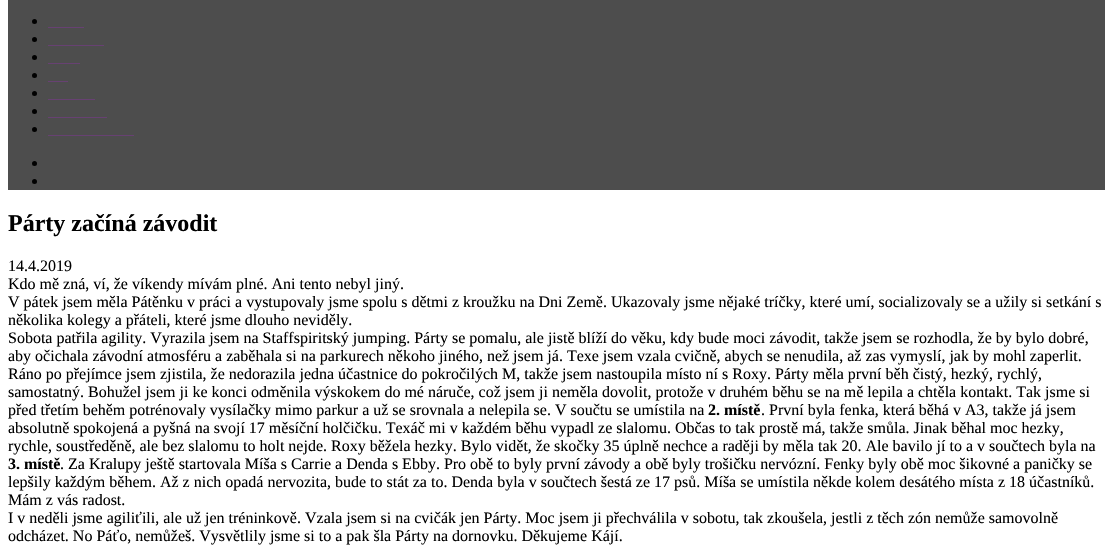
void draw(SkCanvas* canvas) {
	SkPaint fill;
	fill.setAntiAlias(true);
	auto makeFont = [&](const char* family, int weight, float size, bool italic = false) {
		SkFontStyle style(weight, SkFontStyle::kNormal_Width,
			italic ? SkFontStyle::kItalic_Slant : SkFontStyle::kUpright_Slant);
		SkFont result(fontMgr->matchFamilyStyle(family, style), size);
		result.setSubpixel(true);
		return result;
	};
	auto text = [&](const char* s, float x, float y, const SkFont& font) {
		canvas->drawString(s, x, y, font, fill);
	};
	auto box = [&](float l, float t, float r, float b) {
		canvas->drawRect(SkRect::MakeLTRB(l, t, r, b), fill);
	};
	canvas->clear(0xFFFFFFFF);
	fill.setColor(0xFF4D4D4D);
	box(8, 0, 1105, 190);
	fill.setColor(0xFF000000);
	canvas->drawCircle(34.5f, 21.5f, 2.5f, fill);
	fill.setColor(0xFF674172);
	box(48, 27, 84, 28);
	fill.setColor(0xFF000000);
	canvas->drawCircle(34.5f, 39.5f, 2.5f, fill);
	fill.setColor(0xFF674172);
	box(48, 45, 104, 46);
	fill.setColor(0xFF000000);
	canvas->drawCircle(34.5f, 57.5f, 2.5f, fill);
	fill.setColor(0xFF674172);
	box(48, 63, 80, 64);
	fill.setColor(0xFF000000);
	canvas->drawCircle(34.5f, 75.5f, 2.5f, fill);
	fill.setColor(0xFF674172);
	box(48, 81, 68, 82);
	fill.setColor(0xFF000000);
	canvas->drawCircle(34.5f, 93.5f, 2.5f, fill);
	fill.setColor(0xFF674172);
	box(48, 99, 95, 100);
	fill.setColor(0xFF000000);
	canvas->drawCircle(34.5f, 111.5f, 2.5f, fill);
	fill.setColor(0xFF674172);
	box(48, 117, 107, 118);
	fill.setColor(0xFF000000);
	canvas->drawCircle(34.5f, 129.5f, 2.5f, fill);
	fill.setColor(0xFF674172);
	box(48, 135, 134, 136);
	fill.setColor(0xFF000000);
	canvas->drawCircle(34.5f, 163.5f, 2.5f, fill);
	canvas->drawCircle(34.5f, 181.5f, 2.5f, fill);
	auto font1 = makeFont("Liberation Serif", 700, 24);
	text("Párty začíná závodit", 8, 231, font1);
	auto font2 = makeFont("Liberation Serif", 400, 16);
	text("14.4.2019", 8, 271, font2);
	text("Kdo mě zná, ví, že víkendy mívám plné. Ani tento nebyl jiný.", 8, 289, font2);
	text("V pátek jsem měla Pátěnku v práci a vystupovaly jsme spolu s dětmi z kroužku na Dni Země. Ukazovaly jsme nějaké tríčky, které umí, socializovaly se a užily si setkání s", 8, 307, font2);
	text("několika kolegy a přáteli, které jsme dlouho neviděly.", 8, 325, font2);
	text("Sobota patřila agility. Vyrazila jsem na Staffspiritský jumping. Párty se pomalu, ale jistě blíží do věku, kdy bude moci závodit, takže jsem se rozhodla, že by bylo dobré,", 8, 343, font2);
	text("aby očichala závodní atmosféru a zaběhala si na parkurech někoho jiného, než jsem já. Texe jsem vzala cvičně, abych se nenudila, až zas vymyslí, jak by mohl zaperlit.", 8, 361, font2);
	text("Ráno po přejímce jsem zjistila, že nedorazila jedna účastnice do pokročilých M, takže jsem nastoupila místo ní s Roxy. Párty měla první běh čistý, hezký, rychlý,", 8, 379, font2);
	text("samostatný. Bohužel jsem ji ke konci odměnila výskokem do mé náruče, což jsem ji neměla dovolit, protože v druhém běhu se na mě lepila a chtěla kontakt. Tak jsme si", 8, 397, font2);
	text("před třetím behěm potrénovaly vysílačky mimo parkur a už se srovnala a nelepila se. V součtu se umístila na", 8, 415, font2);
	auto font3 = makeFont("Liberation Serif", 700, 16);
	text("2. místě", 708, 415, font3);
	text(". První byla fenka, která běhá v A3, takže já jsem", 761, 415, font2);
	text("absolutně spokojená a pyšná na svojí 17 měsíční holčičku. Texáč mi v každém běhu vypadl ze slalomu. Občas to tak prostě má, takže smůla. Jinak běhal moc hezky,", 8, 433, font2);
	text("rychle, soustředěně, ale bez slalomu to holt nejde. Roxy běžela hezky. Bylo vidět, že skočky 35 úplně nechce a raději by měla tak 20. Ale bavilo jí to a v součtech byla na", 8, 451, font2);
	text("3. místě", 8, 469, font3);
	text(". Za Kralupy ještě startovala Míša s Carrie a Denda s Ebby. Pro obě to byly první závody a obě byly trošičku nervózní. Fenky byly obě moc šikovné a paničky se", 60, 469, font2);
	text("lepšily každým během. Až z nich opadá nervozita, bude to stát za to. Denda byla v součtech šestá ze 17 psů. Míša se umístila někde kolem desátého místa z 18 účastníků.", 8, 487, font2);
	text("Mám z vás radost.", 8, 505, font2);
	text("I v neděli jsme agiliťili, ale už jen tréninkově. Vzala jsem si na cvičák jen Párty. Moc jsem ji přechválila v sobotu, tak zkoušela, jestli z těch zón nemůže samovolně", 8, 523, font2);
	text("odcházet. No Páťo, nemůžeš. Vysvětlily jsme si to a pak šla Párty na dornovku. Děkujeme Kájí.", 8, 541, font2);
}
